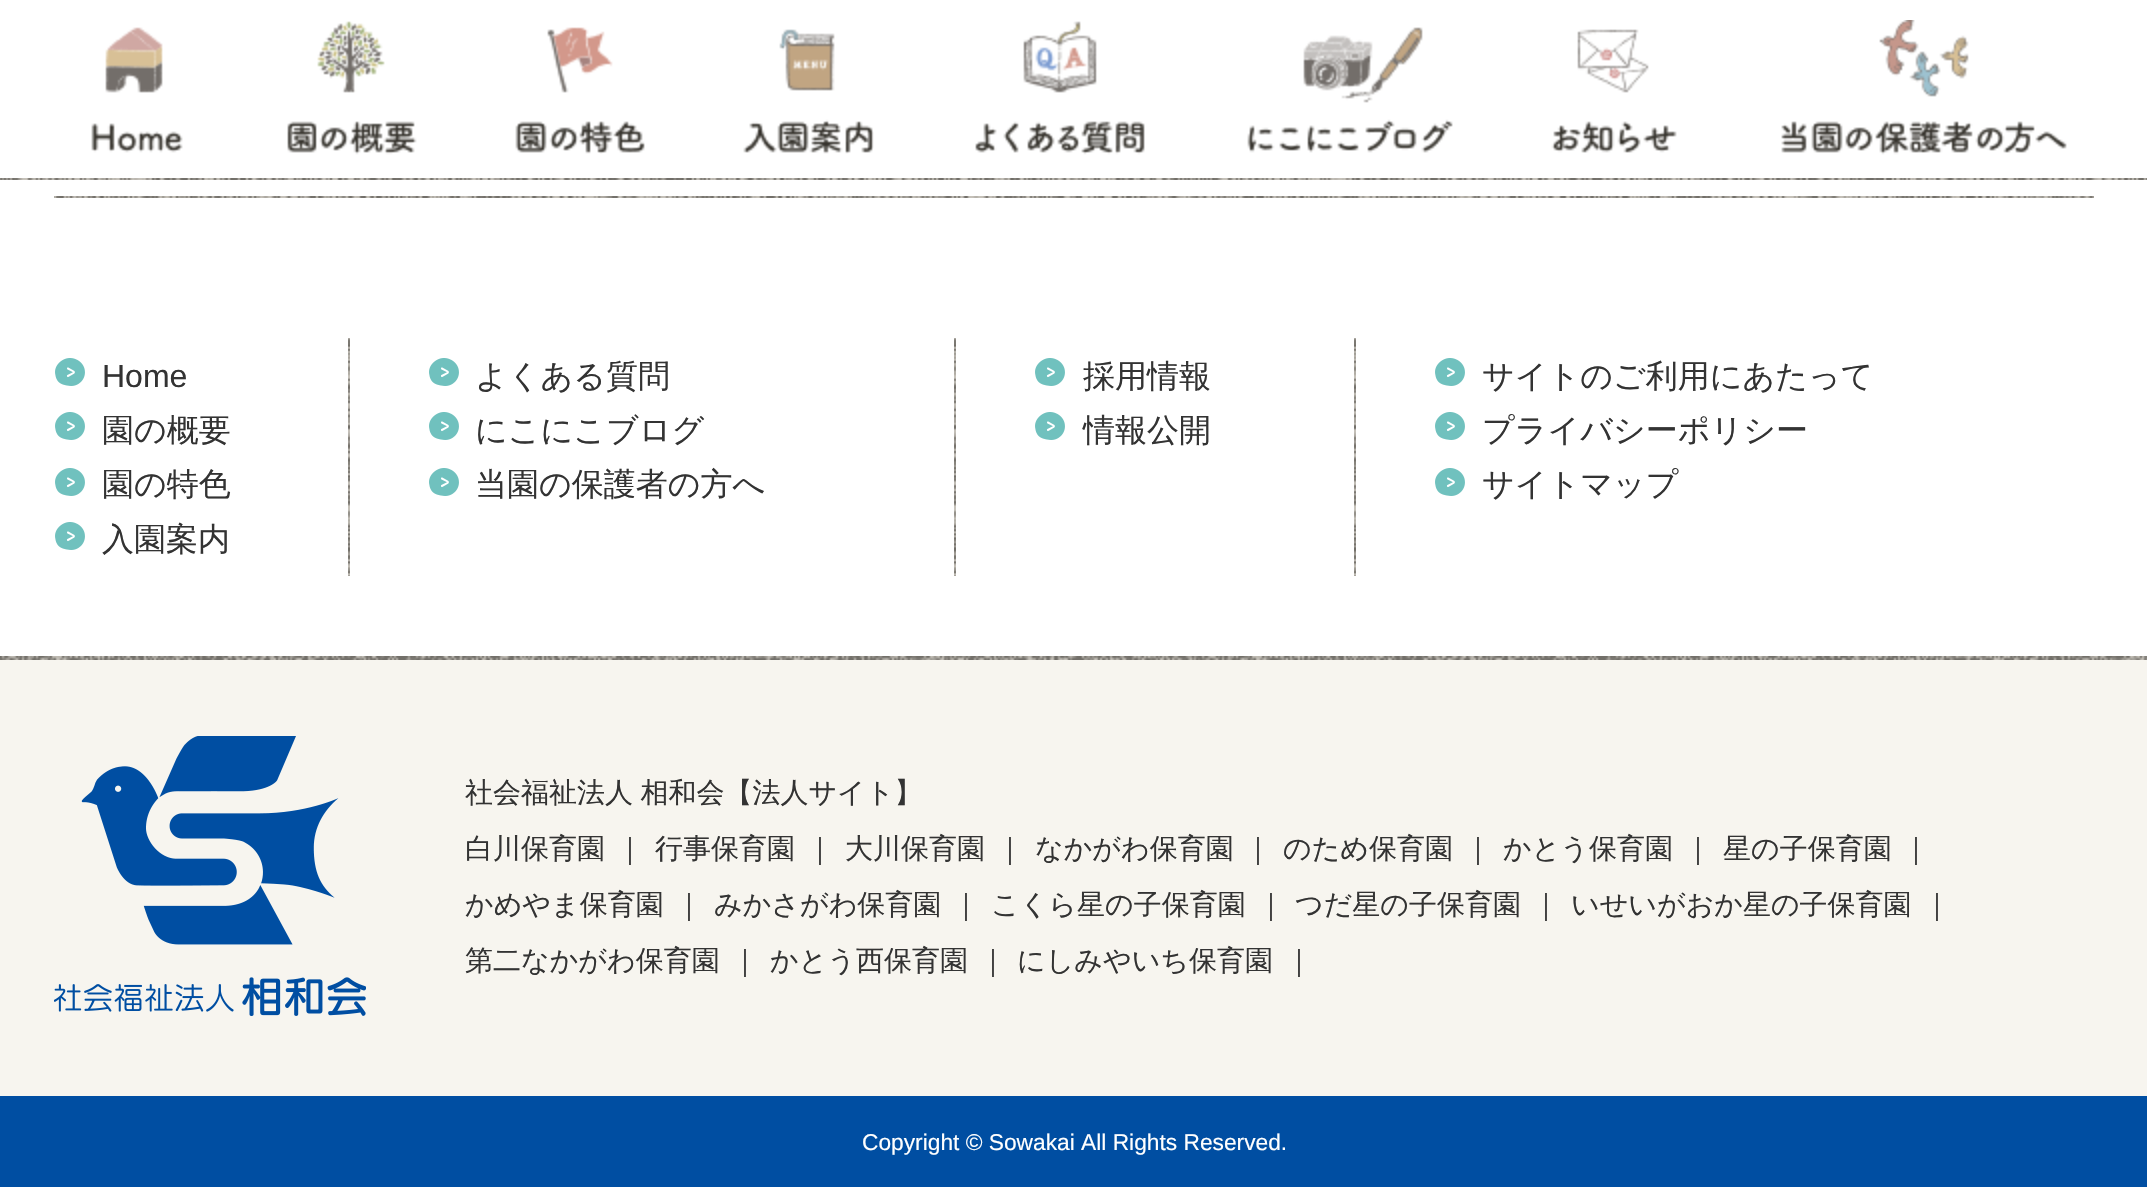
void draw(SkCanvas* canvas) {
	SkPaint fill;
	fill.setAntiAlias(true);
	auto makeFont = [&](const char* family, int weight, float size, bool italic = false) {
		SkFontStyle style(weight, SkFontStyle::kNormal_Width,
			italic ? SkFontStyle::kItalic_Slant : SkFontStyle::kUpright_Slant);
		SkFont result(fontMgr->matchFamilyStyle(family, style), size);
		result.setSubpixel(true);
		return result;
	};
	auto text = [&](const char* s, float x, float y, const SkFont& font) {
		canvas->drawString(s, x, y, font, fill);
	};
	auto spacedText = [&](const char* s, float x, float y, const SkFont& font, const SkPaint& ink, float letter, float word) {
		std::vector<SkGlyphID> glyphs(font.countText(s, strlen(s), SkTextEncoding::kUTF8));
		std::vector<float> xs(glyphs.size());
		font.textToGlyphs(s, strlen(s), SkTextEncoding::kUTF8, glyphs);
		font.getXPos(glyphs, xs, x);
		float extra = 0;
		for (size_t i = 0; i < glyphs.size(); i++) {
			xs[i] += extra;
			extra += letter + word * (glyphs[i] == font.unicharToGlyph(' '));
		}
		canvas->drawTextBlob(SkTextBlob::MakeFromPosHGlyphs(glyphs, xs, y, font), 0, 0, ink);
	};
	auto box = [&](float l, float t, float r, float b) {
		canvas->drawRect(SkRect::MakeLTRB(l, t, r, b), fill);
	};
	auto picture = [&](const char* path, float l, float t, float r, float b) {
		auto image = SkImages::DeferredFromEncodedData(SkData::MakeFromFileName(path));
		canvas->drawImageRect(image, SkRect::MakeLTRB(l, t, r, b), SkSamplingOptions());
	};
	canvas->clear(0xFFFFFFFF);
	picture("image0.png", 0, 178, 2147, 180);
	picture("image1.png", 91, 27, 183, 153);
	picture("image2.png", 287, 21, 417, 155);
	picture("image3.png", 515, 27, 645, 154);
	picture("image4.png", 743, 29, 874, 154);
	picture("image5.png", 975, 21, 1145, 155);
	picture("image6.png", 1247, 27, 1453, 153);
	picture("image7.png", 1551, 29, 1677, 153);
	picture("image8.png", 1781, 20, 2067, 155);
	picture("image9.png", 54, 196, 2094, 198);
	picture("image10.png", 55, 358, 85, 386);
	picture("image10.png", 55, 412, 85, 440);
	picture("image10.png", 55, 468, 85, 496);
	picture("image10.png", 55, 522, 85, 550);
	picture("image11.png", 348, 338, 350, 576);
	picture("image10.png", 429, 358, 459, 386);
	picture("image10.png", 429, 412, 459, 440);
	picture("image10.png", 429, 468, 459, 496);
	picture("image11.png", 954, 338, 956, 576);
	picture("image10.png", 1035, 358, 1065, 386);
	picture("image10.png", 1035, 412, 1065, 440);
	picture("image11.png", 1354, 338, 1356, 576);
	picture("image10.png", 1435, 358, 1465, 386);
	picture("image10.png", 1435, 412, 1465, 440);
	picture("image10.png", 1435, 468, 1465, 496);
	fill.setColor(0xFFF7F5EF);
	box(0, 660, 2147, 1096);
	picture("image12.png", 0, 656, 2147, 660);
	picture("image13.png", 54, 736, 366, 1016);
	fill.setColor(0xFF004EA2);
	box(0, 1096, 2147, 1187);
	auto font1 = makeFont("Liberation Sans", 400, 32);
	fill.setColor(0xFF333333);
	text("Home", 102, 387, font1);
	auto font2 = makeFont("WenQuanYi Zen Hei", 500, 32);
	text("園の概要", 102, 441, font2);
	text("園の特色", 102, 495, font2);
	text("入園案内", 102, 550, font2);
	text("よくある質問", 475, 387, font2);
	text("にこにこブログ", 475, 441, font2);
	text("当園の保護者の方へ", 475, 495, font2);
	text("採用情報", 1083, 387, font2);
	text("情報公開", 1083, 441, font2);
	text("サイトのご利用にあたって", 1482, 387, font2);
	text("プライバシーポリシー", 1482, 441, font2);
	text("サイトマップ", 1482, 495, font2);
	auto font3 = makeFont("WenQuanYi Zen Hei", 500, 28);
	spacedText("社会福祉法人 相和会【法人サイト】", 465, 802, font3, fill, 0, -1);
	text("白川保育園", 465, 858, font3);
	text("｜", 616, 858, font3);
	text("行事保育園", 655, 858, font3);
	text("｜", 806, 858, font3);
	text("大川保育園", 845, 858, font3);
	text("｜", 996, 858, font3);
	text("なかがわ保育園", 1035, 858, font3);
	text("｜", 1244, 858, font3);
	text("のため保育園", 1283, 858, font3);
	text("｜", 1464, 858, font3);
	text("かとう保育園", 1503, 858, font3);
	text("｜", 1684, 858, font3);
	text("星の子保育園", 1723, 858, font3);
	text("｜", 1902, 858, font3);
	text("かめやま保育園", 465, 914, font3);
	text("｜", 675, 914, font3);
	text("みかさがわ保育園", 714, 914, font3);
	text("｜", 952, 914, font3);
	text("こくら星の子保育園", 991, 914, font3);
	text("｜", 1257, 914, font3);
	text("つだ星の子保育園", 1295, 914, font3);
	text("｜", 1532, 914, font3);
	text("いせいがおか星の子保育園", 1571, 914, font3);
	text("｜", 1923, 914, font3);
	text("第二なかがわ保育園", 465, 970, font3);
	text("｜", 731, 970, font3);
	text("かとう西保育園", 770, 970, font3);
	text("｜", 979, 970, font3);
	text("にしみやいち保育園", 1017, 970, font3);
	text("｜", 1285, 970, font3);
	auto font4 = makeFont("Liberation Sans", 400, 22.75f);
	fill.setColor(0xFFFFFFFF);
	text("Copyright © Sowakai All Rights Reserved.", 862, 1150, font4);
}
